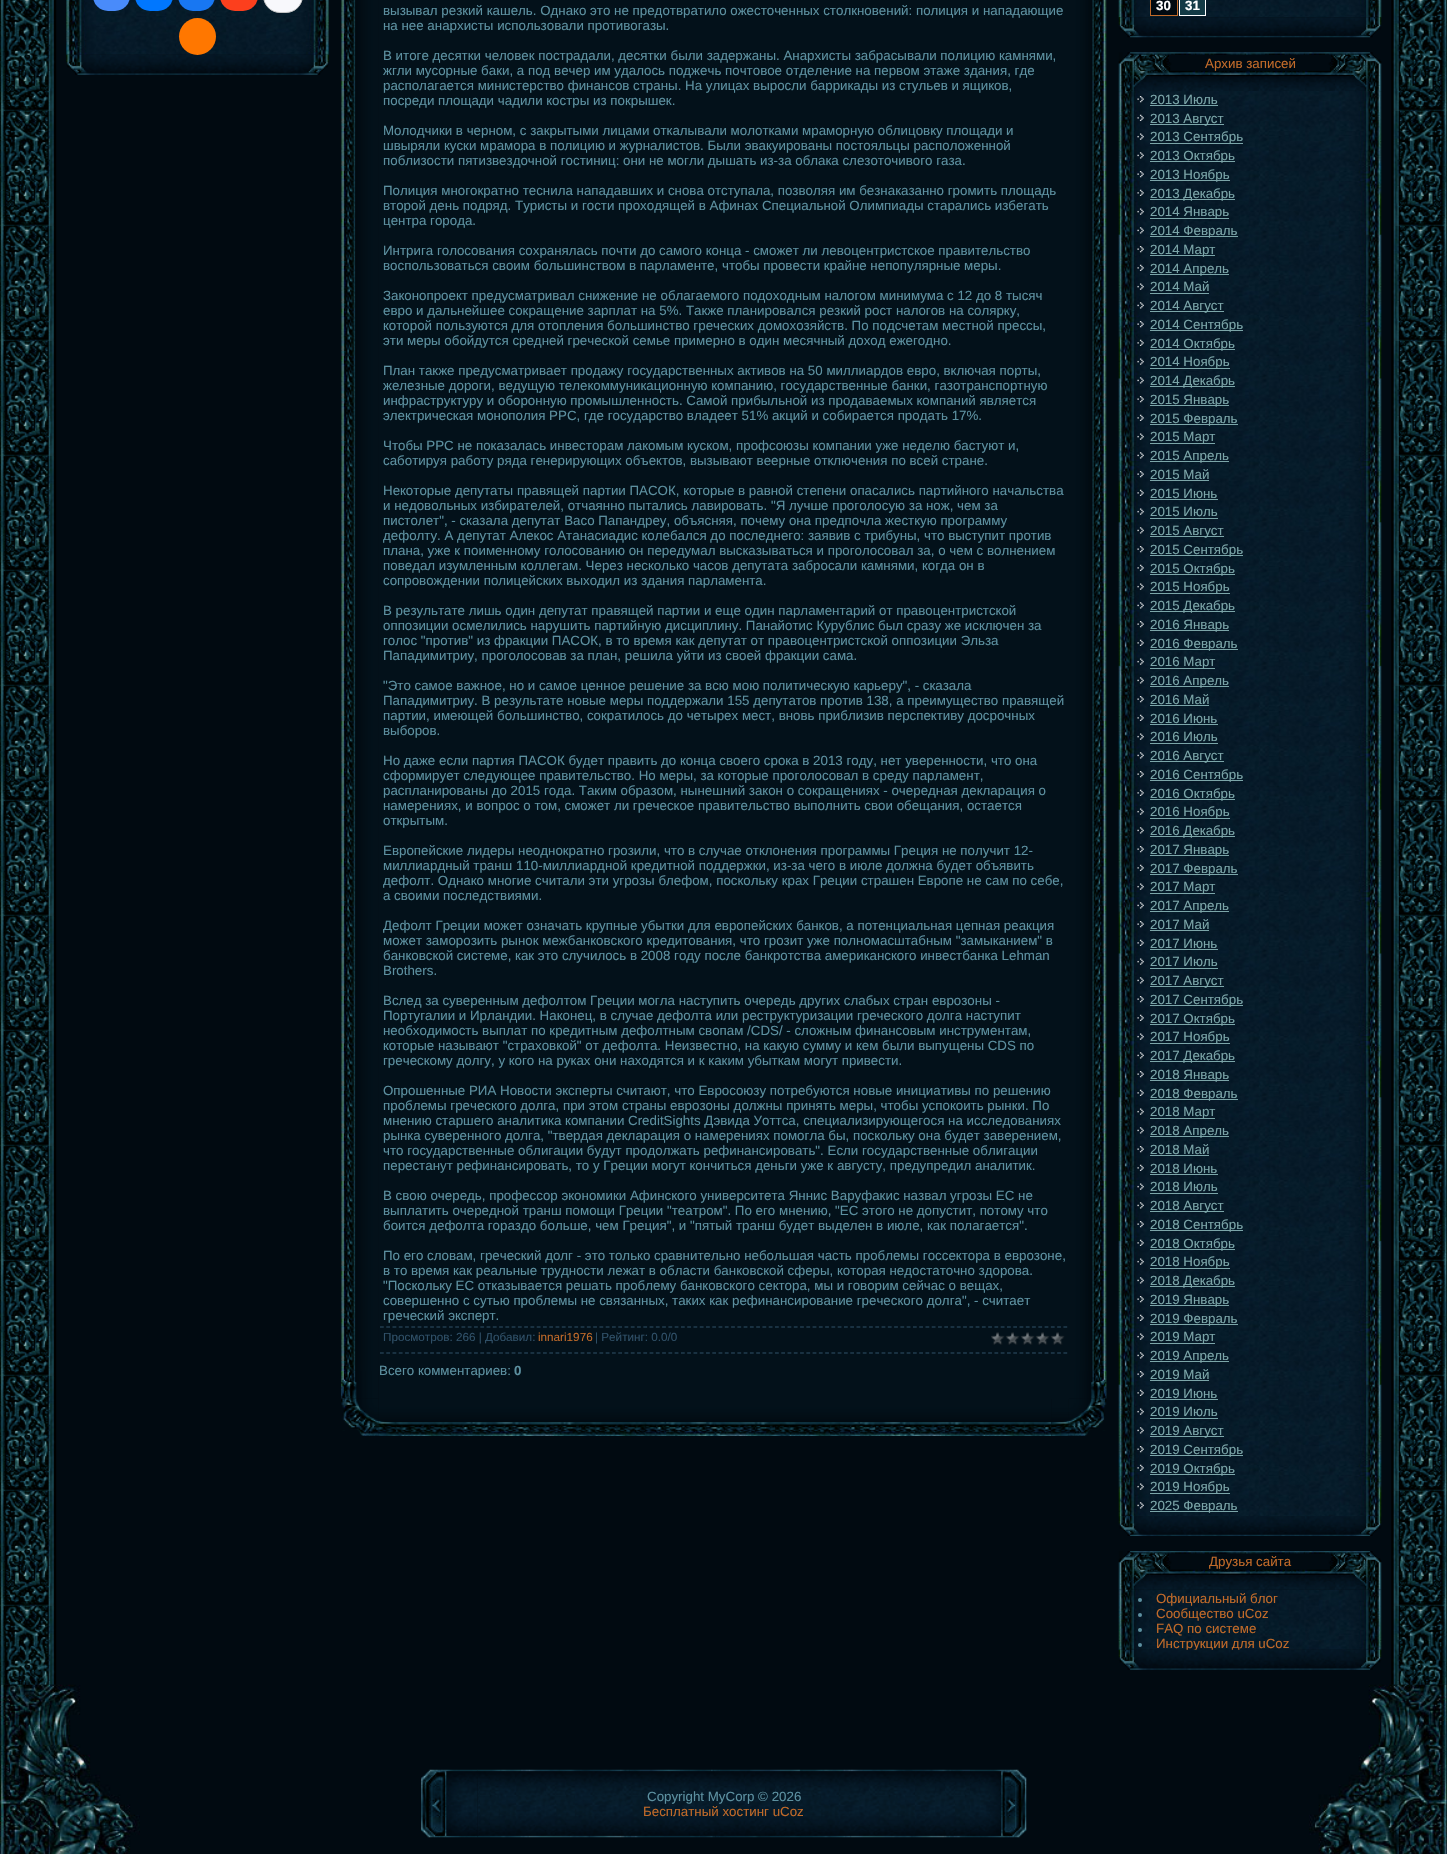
void draw(SkCanvas* canvas) {
	SkPaint fill;
	fill.setAntiAlias(true);
	auto makeFont = [&](const char* family, int weight, float size, bool italic = false) {
		SkFontStyle style(weight, SkFontStyle::kNormal_Width,
			italic ? SkFontStyle::kItalic_Slant : SkFontStyle::kUpright_Slant);
		SkFont result(fontMgr->matchFamilyStyle(family, style), size);
		result.setSubpixel(true);
		return result;
	};
	auto text = [&](const char* s, float x, float y, const SkFont& font) {
		canvas->drawString(s, x, y, font, fill);
	};
	auto box = [&](float l, float t, float r, float b) {
		canvas->drawRect(SkRect::MakeLTRB(l, t, r, b), fill);
	};
	auto roundBox = [&](float l, float t, float r, float b, float radius) {
		canvas->drawRoundRect(SkRect::MakeLTRB(l, t, r, b), radius, radius, fill);
	};
	auto picture = [&](const char* path, float l, float t, float r, float b) {
		auto image = SkImages::DeferredFromEncodedData(SkData::MakeFromFileName(path));
		canvas->drawImageRect(image, SkRect::MakeLTRB(l, t, r, b), SkSamplingOptions());
	};
	canvas->clear(0xFF010A11);
	picture("image0.png", 0, 0, 57, 1685);
	picture("image1.png", 1391, 0, 1447, 1685);
	picture("image2.png", 66, 0, 329, 55);
	fill.setColor(0xFF498BFA);
	roundBox(93, -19, 130, 11, 18.5f);
	fill.setColor(0xFF0077FF);
	roundBox(135, -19, 173, 11, 18.5f);
	fill.setColor(0xFF1877F2);
	roundBox(178, -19, 215, 11, 18.5f);
	fill.setColor(0xFFFC3F1D);
	roundBox(220, -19, 258, 11, 18.5f);
	fill.setColor(0xFFF8F8FC);
	canvas->drawRoundRect(SkRect::MakeLTRB(263.5f, -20.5f, 302.5f, 12.5f), 19.5f, 19.5f, fill);
	fill.setStyle(SkPaint::kStroke_Style);
	fill.setStrokeWidth(1);
	fill.setColor(0xFFC4C4C4);
	canvas->drawRoundRect(SkRect::MakeLTRB(263.5f, -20.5f, 302.5f, 12.5f), 19.5f, 19.5f, fill);
	picture("image3.png", 66, 54, 329, 75);
	fill.setStyle(SkPaint::kFill_Style);
	fill.setColor(0xFFFF7700);
	canvas->drawCircle(197.5f, 36.5f, 18.5f, fill);
	picture("image4.png", 341, 0, 379, 1371);
	fill.setColor(0xFF03111A);
	box(379, 0, 1069, 1399);
	fill.setStyle(SkPaint::kStroke_Style);
	fill.setStrokeWidth(1.2f);
	fill.setColor(0xFF2F5068);
	fill.setPathEffect(SkDashPathEffect::Make({{3.75f, 2.52f}}, 0));
	canvas->drawPath(SkPathBuilder().moveTo(380, 1327).lineTo(1067.5f, 1327).detach(), fill);
	fill.setPathEffect(nullptr);
	fill.setPathEffect(SkDashPathEffect::Make({{3.75f, 2.52f}}, 0));
	canvas->drawPath(SkPathBuilder().moveTo(380, 1353).lineTo(1067.5f, 1353).detach(), fill);
	fill.setPathEffect(nullptr);
	picture("image5.png", 991, 1332, 1065, 1345);
	picture("image6.png", 1069, 0, 1107, 1371);
	picture("image7.png", 341, 1371, 379, 1399);
	picture("image8.png", 341, 1371, 357, 1399);
	picture("image9.png", 1069, 1371, 1107, 1399);
	picture("image10.png", 1091, 1371, 1107, 1399);
	picture("image12.png", 378, 1399, 1052, 1436);
	picture("image11.png", 341, 1398, 379, 1436);
	picture("image13.png", 378, 1420, 397, 1436);
	picture("image14.png", 1051, 1399, 1069, 1436);
	picture("image15.png", 1068, 1398, 1107, 1436);
	picture("image16.png", 1118, 0, 1382, 18);
	fill.setStyle(SkPaint::kFill_Style);
	fill.setColor(0xFF010A11);
	canvas->drawRect(SkRect::MakeLTRB(1150.5f, -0.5f, 1177.5f, 15.5f), fill);
	fill.setStyle(SkPaint::kStroke_Style);
	fill.setStrokeWidth(1);
	fill.setColor(0xFFC16A29);
	canvas->drawRect(SkRect::MakeLTRB(1150.5f, -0.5f, 1177.5f, 15.5f), fill);
	fill.setStyle(SkPaint::kFill_Style);
	fill.setColor(0xFF133A45);
	canvas->drawRect(SkRect::MakeLTRB(1179.5f, -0.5f, 1205.5f, 15.5f), fill);
	fill.setStyle(SkPaint::kStroke_Style);
	fill.setColor(0xFFFFFFFF);
	canvas->drawRect(SkRect::MakeLTRB(1179.5f, -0.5f, 1205.5f, 15.5f), fill);
	picture("image17.png", 1118, 17, 1382, 38);
	picture("image18.png", 1118, 52, 1382, 91);
	picture("image19.png", 1118, 91, 1382, 1516);
	picture("image20.png", 1137, 96, 1144, 103);
	fill.setStyle(SkPaint::kFill_Style);
	fill.setColor(0xFF7BA5A8);
	box(1150, 105, 1218, 106);
	picture("image21.png", 1137, 114, 1144, 121);
	box(1150, 124, 1224, 125);
	picture("image22.png", 1137, 133, 1144, 140);
	box(1150, 143, 1243, 144);
	picture("image23.png", 1137, 152, 1144, 159);
	box(1150, 161, 1235, 162);
	picture("image24.png", 1137, 171, 1144, 178);
	box(1150, 180, 1230, 181);
	picture("image25.png", 1137, 189, 1144, 196);
	box(1150, 199, 1235, 200);
	picture("image26.png", 1137, 208, 1144, 215);
	box(1150, 218, 1229, 219);
	picture("image27.png", 1137, 227, 1144, 234);
	box(1150, 236, 1238, 237);
	picture("image28.png", 1137, 246, 1144, 253);
	box(1150, 255, 1215, 256);
	picture("image29.png", 1137, 264, 1144, 271);
	box(1150, 274, 1229, 275);
	picture("image30.png", 1137, 283, 1144, 290);
	box(1150, 293, 1209, 294);
	picture("image31.png", 1137, 302, 1144, 309);
	box(1150, 311, 1224, 312);
	picture("image32.png", 1137, 321, 1144, 328);
	box(1150, 330, 1243, 331);
	picture("image33.png", 1137, 339, 1144, 346);
	box(1150, 349, 1235, 350);
	picture("image34.png", 1137, 358, 1144, 365);
	box(1150, 368, 1230, 369);
	picture("image35.png", 1137, 377, 1144, 384);
	box(1150, 386, 1235, 387);
	picture("image36.png", 1137, 396, 1144, 403);
	box(1150, 405, 1229, 406);
	picture("image37.png", 1137, 414, 1144, 421);
	box(1150, 424, 1238, 425);
	picture("image38.png", 1137, 433, 1144, 440);
	box(1150, 443, 1215, 444);
	picture("image39.png", 1137, 452, 1144, 459);
	box(1150, 461, 1229, 462);
	picture("image40.png", 1137, 471, 1144, 478);
	box(1150, 480, 1209, 481);
	picture("image41.png", 1137, 489, 1144, 496);
	box(1150, 499, 1218, 500);
	picture("image42.png", 1137, 508, 1144, 515);
	box(1150, 518, 1218, 519);
	picture("image43.png", 1137, 527, 1144, 534);
	box(1150, 536, 1224, 537);
	picture("image44.png", 1137, 546, 1144, 553);
	box(1150, 555, 1243, 556);
	picture("image45.png", 1137, 564, 1144, 571);
	box(1150, 574, 1235, 575);
	picture("image46.png", 1137, 583, 1144, 590);
	box(1150, 593, 1230, 594);
	picture("image47.png", 1137, 602, 1144, 609);
	box(1150, 611, 1235, 612);
	picture("image48.png", 1137, 621, 1144, 628);
	box(1150, 630, 1229, 631);
	picture("image49.png", 1137, 639, 1144, 646);
	box(1150, 649, 1238, 650);
	picture("image50.png", 1137, 658, 1144, 665);
	box(1150, 668, 1215, 669);
	picture("image51.png", 1137, 677, 1144, 684);
	box(1150, 686, 1229, 687);
	picture("image52.png", 1137, 696, 1144, 703);
	box(1150, 705, 1209, 706);
	picture("image53.png", 1137, 714, 1144, 721);
	box(1150, 724, 1218, 725);
	picture("image54.png", 1137, 733, 1144, 740);
	box(1150, 743, 1218, 744);
	picture("image55.png", 1137, 752, 1144, 759);
	box(1150, 761, 1224, 762);
	picture("image56.png", 1137, 771, 1144, 778);
	box(1150, 780, 1243, 781);
	picture("image57.png", 1137, 789, 1144, 796);
	box(1150, 799, 1235, 800);
	picture("image58.png", 1137, 808, 1144, 815);
	box(1150, 818, 1230, 819);
	picture("image59.png", 1137, 827, 1144, 834);
	box(1150, 836, 1235, 837);
	picture("image60.png", 1137, 846, 1144, 853);
	box(1150, 855, 1229, 856);
	picture("image61.png", 1137, 864, 1144, 871);
	box(1150, 874, 1238, 875);
	picture("image62.png", 1137, 883, 1144, 890);
	box(1150, 893, 1215, 894);
	picture("image63.png", 1137, 902, 1144, 909);
	box(1150, 911, 1229, 912);
	picture("image64.png", 1137, 921, 1144, 928);
	box(1150, 930, 1209, 931);
	picture("image65.png", 1137, 939, 1144, 946);
	box(1150, 949, 1218, 950);
	picture("image66.png", 1137, 958, 1144, 965);
	box(1150, 968, 1218, 969);
	picture("image67.png", 1137, 977, 1144, 984);
	box(1150, 986, 1224, 987);
	picture("image68.png", 1137, 996, 1144, 1003);
	box(1150, 1005, 1243, 1006);
	picture("image69.png", 1137, 1014, 1144, 1021);
	box(1150, 1024, 1235, 1025);
	picture("image70.png", 1137, 1033, 1144, 1040);
	box(1150, 1043, 1230, 1044);
	picture("image71.png", 1137, 1052, 1144, 1059);
	box(1150, 1061, 1235, 1062);
	picture("image72.png", 1137, 1071, 1144, 1078);
	box(1150, 1080, 1229, 1081);
	picture("image73.png", 1137, 1089, 1144, 1096);
	box(1150, 1099, 1238, 1100);
	picture("image74.png", 1137, 1108, 1144, 1115);
	box(1150, 1118, 1215, 1119);
	picture("image75.png", 1137, 1127, 1144, 1134);
	box(1150, 1136, 1229, 1137);
	picture("image76.png", 1137, 1146, 1144, 1153);
	box(1150, 1155, 1209, 1156);
	picture("image77.png", 1137, 1164, 1144, 1171);
	box(1150, 1174, 1218, 1175);
	picture("image78.png", 1137, 1183, 1144, 1190);
	box(1150, 1193, 1218, 1194);
	picture("image79.png", 1137, 1202, 1144, 1209);
	box(1150, 1211, 1224, 1212);
	picture("image80.png", 1137, 1221, 1144, 1228);
	box(1150, 1230, 1243, 1231);
	picture("image81.png", 1137, 1239, 1144, 1246);
	box(1150, 1249, 1235, 1250);
	picture("image82.png", 1137, 1258, 1144, 1265);
	box(1150, 1268, 1230, 1269);
	picture("image83.png", 1137, 1277, 1144, 1284);
	box(1150, 1286, 1235, 1287);
	picture("image84.png", 1137, 1296, 1144, 1303);
	box(1150, 1305, 1229, 1306);
	picture("image85.png", 1137, 1314, 1144, 1321);
	box(1150, 1324, 1238, 1325);
	picture("image86.png", 1137, 1333, 1144, 1340);
	box(1150, 1343, 1215, 1344);
	picture("image87.png", 1137, 1352, 1144, 1359);
	box(1150, 1361, 1229, 1362);
	picture("image88.png", 1137, 1371, 1144, 1378);
	box(1150, 1380, 1209, 1381);
	picture("image89.png", 1137, 1389, 1144, 1396);
	box(1150, 1399, 1218, 1400);
	picture("image90.png", 1137, 1408, 1144, 1415);
	box(1150, 1418, 1218, 1419);
	picture("image91.png", 1137, 1427, 1144, 1434);
	box(1150, 1436, 1224, 1437);
	picture("image92.png", 1137, 1446, 1144, 1453);
	box(1150, 1455, 1243, 1456);
	picture("image93.png", 1137, 1464, 1144, 1471);
	box(1150, 1474, 1235, 1475);
	picture("image94.png", 1137, 1483, 1144, 1490);
	box(1150, 1493, 1230, 1494);
	picture("image95.png", 1137, 1502, 1144, 1509);
	box(1150, 1511, 1238, 1512);
	picture("image96.png", 1118, 1516, 1382, 1536);
	picture("image97.png", 1118, 1551, 1382, 1590);
	picture("image98.png", 1118, 1589, 1382, 1650);
	fill.setColor(0xFF5C90A0);
	canvas->drawCircle(1140, 1600, 2, fill);
	canvas->drawCircle(1140, 1615, 2, fill);
	canvas->drawCircle(1140, 1630, 2, fill);
	canvas->drawCircle(1140, 1645, 2, fill);
	picture("image100.png", 0, 1684, 140, 1854);
	picture("image102.png", 477, 1769, 970, 1838);
	picture("image101.png", 421, 1769, 478, 1838);
	picture("image103.png", 970, 1769, 1027, 1838);
	picture("image104.png", 1309, 1684, 1447, 1854);
	auto font1 = makeFont("Liberation Sans", 400, 13.33f);
	text("вызывал резкий кашель. Однако это не предотвратило ожесточенных столкновений: полиция и нападающие", 383, 15, font1);
	text("на нее анархисты использовали противогазы.", 383, 30, font1);
	text("В итоге десятки человек пострадали, десятки были задержаны. Анархисты забрасывали полицию камнями,", 383, 60, font1);
	text("жгли мусорные баки, а под вечер им удалось поджечь почтовое отделение на первом этаже здания, где", 383, 75, font1);
	text("располагается министерство финансов страны. На улицах выросли баррикады из стульев и ящиков,", 383, 90, font1);
	text("посреди площади чадили костры из покрышек.", 383, 105, font1);
	text("Молодчики в черном, с закрытыми лицами откалывали молотками мраморную облицовку площади и", 383, 135, font1);
	text("швыряли куски мрамора в полицию и журналистов. Были эвакуированы постояльцы расположенной", 383, 150, font1);
	text("поблизости пятизвездочной гостиниц: они не могли дышать из-за облака слезоточивого газа.", 383, 165, font1);
	text("Полиция многократно теснила нападавших и снова отступала, позволяя им безнаказанно громить площадь", 383, 195, font1);
	text("второй день подряд. Туристы и гости проходящей в Афинах Специальной Олимпиады старались избегать", 383, 210, font1);
	text("центра города.", 383, 225, font1);
	text("Интрига голосования сохранялась почти до самого конца - сможет ли левоцентристское правительство", 383, 255, font1);
	text("воспользоваться своим большинством в парламенте, чтобы провести крайне непопулярные меры.", 383, 270, font1);
	text("Законопроект предусматривал снижение не облагаемого подоходным налогом минимума с 12 до 8 тысяч", 383, 300, font1);
	text("евро и дальнейшее сокращение зарплат на 5%. Также планировался резкий рост налогов на солярку,", 383, 315, font1);
	text("которой пользуются для отопления большинство греческих домохозяйств. По подсчетам местной прессы,", 383, 330, font1);
	text("эти меры обойдутся средней греческой семье примерно в один месячный доход ежегодно.", 383, 345, font1);
	text("План также предусматривает продажу государственных активов на 50 миллиардов евро, включая порты,", 383, 375, font1);
	text("железные дороги, ведущую телекоммуникационную компанию, государственные банки, газотранспортную", 383, 390, font1);
	text("инфраструктуру и оборонную промышленность. Самой прибыльной из продаваемых компаний является", 383, 405, font1);
	text("электрическая монополия РРС, где государство владеет 51% акций и собирается продать 17%.", 383, 420, font1);
	text("Чтобы РРС не показалась инвесторам лакомым куском, профсоюзы компании уже неделю бастуют и,", 383, 450, font1);
	text("саботируя работу ряда генерирующих объектов, вызывают веерные отключения по всей стране.", 383, 465, font1);
	text("Некоторые депутаты правящей партии ПАСОК, которые в равной степени опасались партийного начальства", 383, 495, font1);
	text("и недовольных избирателей, отчаянно пытались лавировать. \"Я лучше проголосую за нож, чем за", 383, 510, font1);
	text("пистолет\", - сказала депутат Васо Папандреу, объясняя, почему она предпочла жесткую программу", 383, 525, font1);
	text("дефолту. А депутат Алекос Атанасиадис колебался до последнего: заявив с трибуны, что выступит против", 383, 540, font1);
	text("плана, уже к поименному голосованию он передумал высказываться и проголосовал за, о чем с волнением", 383, 555, font1);
	text("поведал изумленным коллегам. Через несколько часов депутата забросали камнями, когда он в", 383, 570, font1);
	text("сопровождении полицейских выходил из здания парламента.", 383, 585, font1);
	text("В результате лишь один депутат правящей партии и еще один парламентарий от правоцентристской", 383, 615, font1);
	text("оппозиции осмелились нарушить партийную дисциплину. Панайотис Курублис был сразу же исключен за", 383, 630, font1);
	text("голос \"против\" из фракции ПАСОК, в то время как депутат от правоцентристской оппозиции Эльза", 383, 645, font1);
	text("Пападимитриу, проголосовав за план, решила уйти из своей фракции сама.", 383, 660, font1);
	text("\"Это самое важное, но и самое ценное решение за всю мою политическую карьеру\", - сказала", 383, 690, font1);
	text("Пападимитриу. В результате новые меры поддержали 155 депутатов против 138, а преимущество правящей", 383, 705, font1);
	text("партии, имеющей большинство, сократилось до четырех мест, вновь приблизив перспективу досрочных", 383, 720, font1);
	text("выборов.", 383, 735, font1);
	text("Но даже если партия ПАСОК будет править до конца своего срока в 2013 году, нет уверенности, что она", 383, 765, font1);
	text("сформирует следующее правительство. Но меры, за которые проголосовал в среду парламент,", 383, 780, font1);
	text("распланированы до 2015 года. Таким образом, нынешний закон о сокращениях - очередная декларация о", 383, 795, font1);
	text("намерениях, и вопрос о том, сможет ли греческое правительство выполнить свои обещания, остается", 383, 810, font1);
	text("открытым.", 383, 825, font1);
	text("Европейские лидеры неоднократно грозили, что в случае отклонения программы Греция не получит 12-", 383, 855, font1);
	text("миллиардный транш 110-миллиардной кредитной поддержки, из-за чего в июле должна будет объявить", 383, 870, font1);
	text("дефолт. Однако многие считали эти угрозы блефом, поскольку крах Греции страшен Европе не сам по себе,", 383, 885, font1);
	text("а своими последствиями.", 383, 900, font1);
	text("Дефолт Греции может означать крупные убытки для европейских банков, а потенциальная цепная реакция", 383, 930, font1);
	text("может заморозить рынок межбанковского кредитования, что грозит уже полномасштабным \"замыканием\" в", 383, 945, font1);
	text("банковской системе, как это случилось в 2008 году после банкротства американского инвестбанка Lehman", 383, 960, font1);
	text("Brothers.", 383, 975, font1);
	text("Вслед за суверенным дефолтом Греции могла наступить очередь других слабых стран еврозоны -", 383, 1005, font1);
	text("Португалии и Ирландии. Наконец, в случае дефолта или реструктуризации греческого долга наступит", 383, 1020, font1);
	text("необходимость выплат по кредитным дефолтным свопам /CDS/ - сложным финансовым инструментам,", 383, 1035, font1);
	text("которые называют \"страховкой\" от дефолта. Неизвестно, на какую сумму и кем были выпущены CDS по", 383, 1050, font1);
	text("греческому долгу, у кого на руках они находятся и к каким убыткам могут привести.", 383, 1065, font1);
	text("Опрошенные РИА Новости эксперты считают, что Евросоюзу потребуются новые инициативы по решению", 383, 1095, font1);
	text("проблемы греческого долга, при этом страны еврозоны должны принять меры, чтобы успокоить рынки. По", 383, 1110, font1);
	text("мнению старшего аналитика компании CreditSights Дэвида Уоттса, специализирующегося на исследованиях", 383, 1125, font1);
	text("рынка суверенного долга, \"твердая декларация о намерениях помогла бы, поскольку она будет заверением,", 383, 1140, font1);
	text("что государственные облигации будут продолжать рефинансировать\". Если государственные облигации", 383, 1155, font1);
	text("перестанут рефинансировать, то у Греции могут кончиться деньги уже к августу, предупредил аналитик.", 383, 1170, font1);
	text("В свою очередь, профессор экономики Афинского университета Яннис Варуфакис назвал угрозы ЕС не", 383, 1200, font1);
	text("выплатить очередной транш помощи Греции \"театром\". По его мнению, \"ЕС этого не допустит, потому что", 383, 1215, font1);
	text("боится дефолта гораздо больше, чем Греция\", и \"пятый транш будет выделен в июле, как полагается\".", 383, 1230, font1);
	text("По его словам, греческий долг - это только сравнительно небольшая часть проблемы госсектора в еврозоне,", 383, 1260, font1);
	text("в то время как реальные трудности лежат в области банковской сферы, которая недостаточно здорова.", 383, 1275, font1);
	text("\"Поскольку ЕС отказывается решать проблему банковского сектора, мы и говорим сейчас о вещах,", 383, 1290, font1);
	text("совершенно с сутью проблемы не связанных, таких как рефинансирование греческого долга\", - считает", 383, 1305, font1);
	text("греческий эксперт.", 383, 1320, font1);
	auto font2 = makeFont("Liberation Sans", 400, 11.7f);
	fill.setColor(0xFF2F5068);
	text("Просмотров: 266 | Добавил:", 383, 1341, font2);
	fill.setColor(0xFFC16A29);
	text("innari1976", 538, 1341, font2);
	fill.setColor(0xFF2F5068);
	text("| Рейтинг: 0.0/0", 595, 1341, font2);
	fill.setColor(0xFF5C90A0);
	text("Всего комментариев:", 379, 1375, font1);
	auto font3 = makeFont("Liberation Sans", 700, 13.33f);
	text("0", 514, 1375, font3);
	fill.setColor(0xFFFFFFFF);
	text("30", 1156, 10, font3);
	text("31", 1185, 10, font3);
	fill.setColor(0xFFC16A29);
	text("Архив записей", 1205, 68, font1);
	fill.setColor(0xFF7BA5A8);
	text("2013 Июль", 1150, 104, font1);
	text("2013 Август", 1150, 123, font1);
	text("2013 Сентябрь", 1150, 141, font1);
	text("2013 Октябрь", 1150, 160, font1);
	text("2013 Ноябрь", 1150, 179, font1);
	text("2013 Декабрь", 1150, 198, font1);
	text("2014 Январь", 1150, 216, font1);
	text("2014 Февраль", 1150, 235, font1);
	text("2014 Март", 1150, 254, font1);
	text("2014 Апрель", 1150, 273, font1);
	text("2014 Май", 1150, 291, font1);
	text("2014 Август", 1150, 310, font1);
	text("2014 Сентябрь", 1150, 329, font1);
	text("2014 Октябрь", 1150, 348, font1);
	text("2014 Ноябрь", 1150, 366, font1);
	text("2014 Декабрь", 1150, 385, font1);
	text("2015 Январь", 1150, 404, font1);
	text("2015 Февраль", 1150, 423, font1);
	text("2015 Март", 1150, 441, font1);
	text("2015 Апрель", 1150, 460, font1);
	text("2015 Май", 1150, 479, font1);
	text("2015 Июнь", 1150, 498, font1);
	text("2015 Июль", 1150, 516, font1);
	text("2015 Август", 1150, 535, font1);
	text("2015 Сентябрь", 1150, 554, font1);
	text("2015 Октябрь", 1150, 573, font1);
	text("2015 Ноябрь", 1150, 591, font1);
	text("2015 Декабрь", 1150, 610, font1);
	text("2016 Январь", 1150, 629, font1);
	text("2016 Февраль", 1150, 648, font1);
	text("2016 Март", 1150, 666, font1);
	text("2016 Апрель", 1150, 685, font1);
	text("2016 Май", 1150, 704, font1);
	text("2016 Июнь", 1150, 723, font1);
	text("2016 Июль", 1150, 741, font1);
	text("2016 Август", 1150, 760, font1);
	text("2016 Сентябрь", 1150, 779, font1);
	text("2016 Октябрь", 1150, 798, font1);
	text("2016 Ноябрь", 1150, 816, font1);
	text("2016 Декабрь", 1150, 835, font1);
	text("2017 Январь", 1150, 854, font1);
	text("2017 Февраль", 1150, 873, font1);
	text("2017 Март", 1150, 891, font1);
	text("2017 Апрель", 1150, 910, font1);
	text("2017 Май", 1150, 929, font1);
	text("2017 Июнь", 1150, 948, font1);
	text("2017 Июль", 1150, 966, font1);
	text("2017 Август", 1150, 985, font1);
	text("2017 Сентябрь", 1150, 1004, font1);
	text("2017 Октябрь", 1150, 1023, font1);
	text("2017 Ноябрь", 1150, 1041, font1);
	text("2017 Декабрь", 1150, 1060, font1);
	text("2018 Январь", 1150, 1079, font1);
	text("2018 Февраль", 1150, 1098, font1);
	text("2018 Март", 1150, 1116, font1);
	text("2018 Апрель", 1150, 1135, font1);
	text("2018 Май", 1150, 1154, font1);
	text("2018 Июнь", 1150, 1173, font1);
	text("2018 Июль", 1150, 1191, font1);
	text("2018 Август", 1150, 1210, font1);
	text("2018 Сентябрь", 1150, 1229, font1);
	text("2018 Октябрь", 1150, 1248, font1);
	text("2018 Ноябрь", 1150, 1266, font1);
	text("2018 Декабрь", 1150, 1285, font1);
	text("2019 Январь", 1150, 1304, font1);
	text("2019 Февраль", 1150, 1323, font1);
	text("2019 Март", 1150, 1341, font1);
	text("2019 Апрель", 1150, 1360, font1);
	text("2019 Май", 1150, 1379, font1);
	text("2019 Июнь", 1150, 1398, font1);
	text("2019 Июль", 1150, 1416, font1);
	text("2019 Август", 1150, 1435, font1);
	text("2019 Сентябрь", 1150, 1454, font1);
	text("2019 Октябрь", 1150, 1473, font1);
	text("2019 Ноябрь", 1150, 1491, font1);
	text("2025 Февраль", 1150, 1510, font1);
	fill.setColor(0xFFC16A29);
	text("Друзья сайта", 1209, 1566, font1);
	text("Официальный блог", 1156, 1603, font1);
	text("Сообщество uCoz", 1156, 1618, font1);
	text("FAQ по системе", 1156, 1633, font1);
	text("Инструкции для uCoz", 1156, 1648, font1);
	picture("image99.png", 1118, 1649, 1382, 1670);
	fill.setColor(0xFF5C90A0);
	text("Copyright MyCorp © 2026", 647, 1801, font1);
	fill.setColor(0xFFC16A29);
	text("Бесплатный хостинг uCoz", 643, 1816, font1);
}
